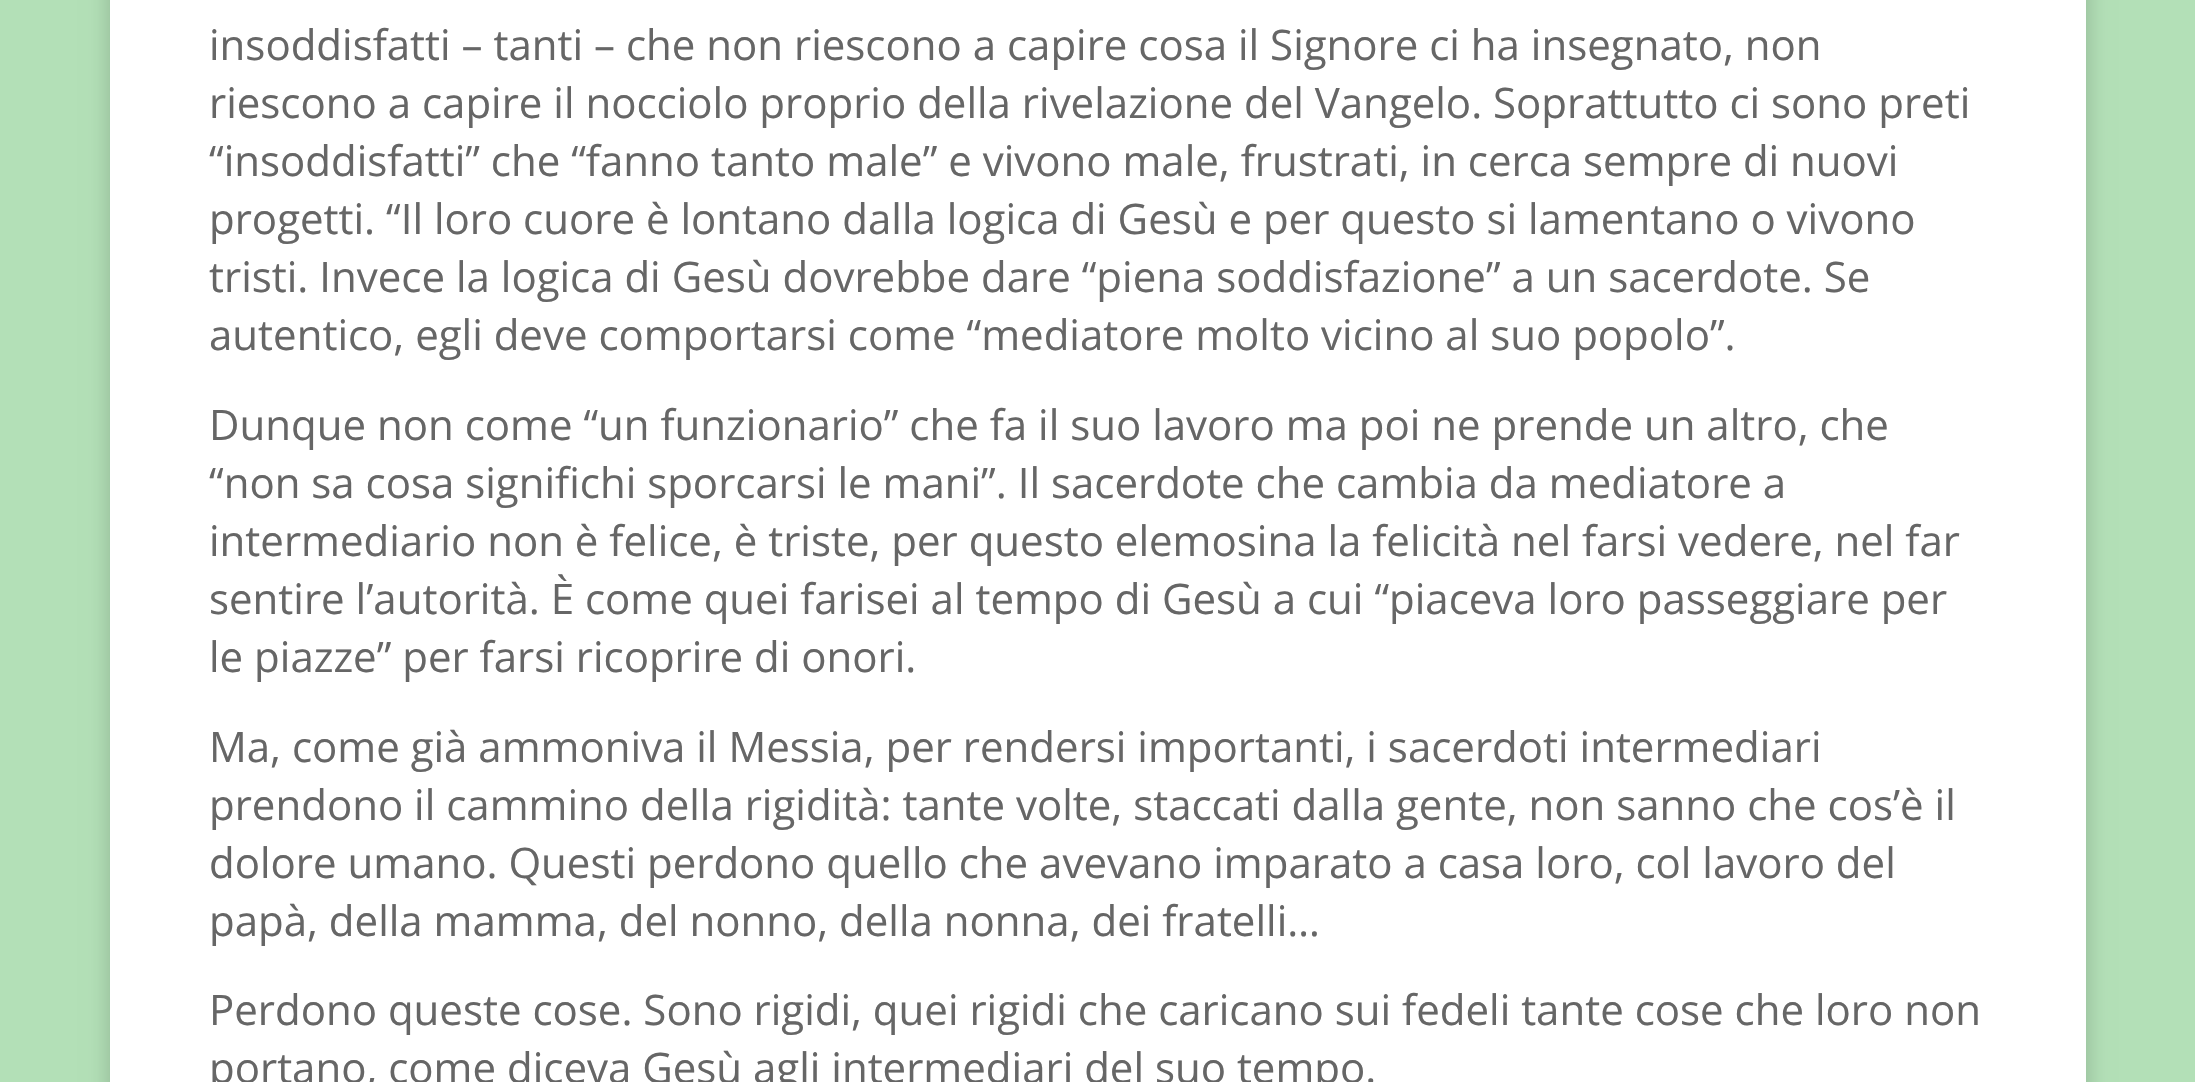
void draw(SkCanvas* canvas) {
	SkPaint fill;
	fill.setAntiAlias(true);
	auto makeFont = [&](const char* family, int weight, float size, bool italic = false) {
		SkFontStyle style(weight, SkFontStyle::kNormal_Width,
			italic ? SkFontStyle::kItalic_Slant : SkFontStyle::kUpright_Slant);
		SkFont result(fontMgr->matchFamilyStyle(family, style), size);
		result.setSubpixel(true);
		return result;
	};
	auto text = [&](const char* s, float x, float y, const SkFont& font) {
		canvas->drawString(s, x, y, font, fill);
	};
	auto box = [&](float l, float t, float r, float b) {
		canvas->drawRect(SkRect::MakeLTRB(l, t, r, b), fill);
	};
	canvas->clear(0xFFB3E0B7);
	fill.setColor(0x33000000);
	fill.setMaskFilter(SkMaskFilter::MakeBlur(kNormal_SkBlurStyle, 11));
	canvas->drawRect(SkRect::MakeLTRB(110, -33, 2086, 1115), fill);
	fill.setMaskFilter(nullptr);
	fill.setColor(0xFFFFFFFF);
	box(110, 0, 2086, 1082);
	auto font1 = makeFont("Open Sans", 400, 42);
	fill.setColor(0xFF666666);
	text("insoddisfatti – tanti – che non riescono a capire cosa il Signore ci ha insegnato, non", 209, 60, font1);
	text("riescono a capire il nocciolo proprio della rivelazione del Vangelo. Soprattutto ci sono preti", 209, 118, font1);
	text("“insoddisfatti” che “fanno tanto male” e vivono male, frustrati, in cerca sempre di nuovi", 209, 176, font1);
	text("progetti. “Il loro cuore è lontano dalla logica di Gesù e per questo si lamentano o vivono", 209, 234, font1);
	text("tristi. Invece la logica di Gesù dovrebbe dare “piena soddisfazione” a un sacerdote. Se", 209, 292, font1);
	text("autentico, egli deve comportarsi come “mediatore molto vicino al suo popolo”.", 209, 350, font1);
	text("Dunque non come “un funzionario” che fa il suo lavoro ma poi ne prende un altro, che", 209, 440, font1);
	text("“non sa cosa significhi sporcarsi le mani”. Il sacerdote che cambia da mediatore a", 209, 498, font1);
	text("intermediario non è felice, è triste, per questo elemosina la felicità nel farsi vedere, nel far", 209, 556, font1);
	text("sentire l’autorità. È come quei farisei al tempo di Gesù a cui “piaceva loro passeggiare per", 209, 614, font1);
	text("le piazze” per farsi ricoprire di onori.", 209, 672, font1);
	text("Ma, come già ammoniva il Messia, per rendersi importanti, i sacerdoti intermediari", 209, 762, font1);
	text("prendono il cammino della rigidità: tante volte, staccati dalla gente, non sanno che cos’è il", 209, 820, font1);
	text("dolore umano. Questi perdono quello che avevano imparato a casa loro, col lavoro del", 209, 878, font1);
	text("papà, della mamma, del nonno, della nonna, dei fratelli…", 209, 936, font1);
	text("Perdono queste cose. Sono rigidi, quei rigidi che caricano sui fedeli tante cose che loro non", 209, 1025, font1);
	text("portano, come diceva Gesù agli intermediari del suo tempo.", 209, 1083, font1);
}
